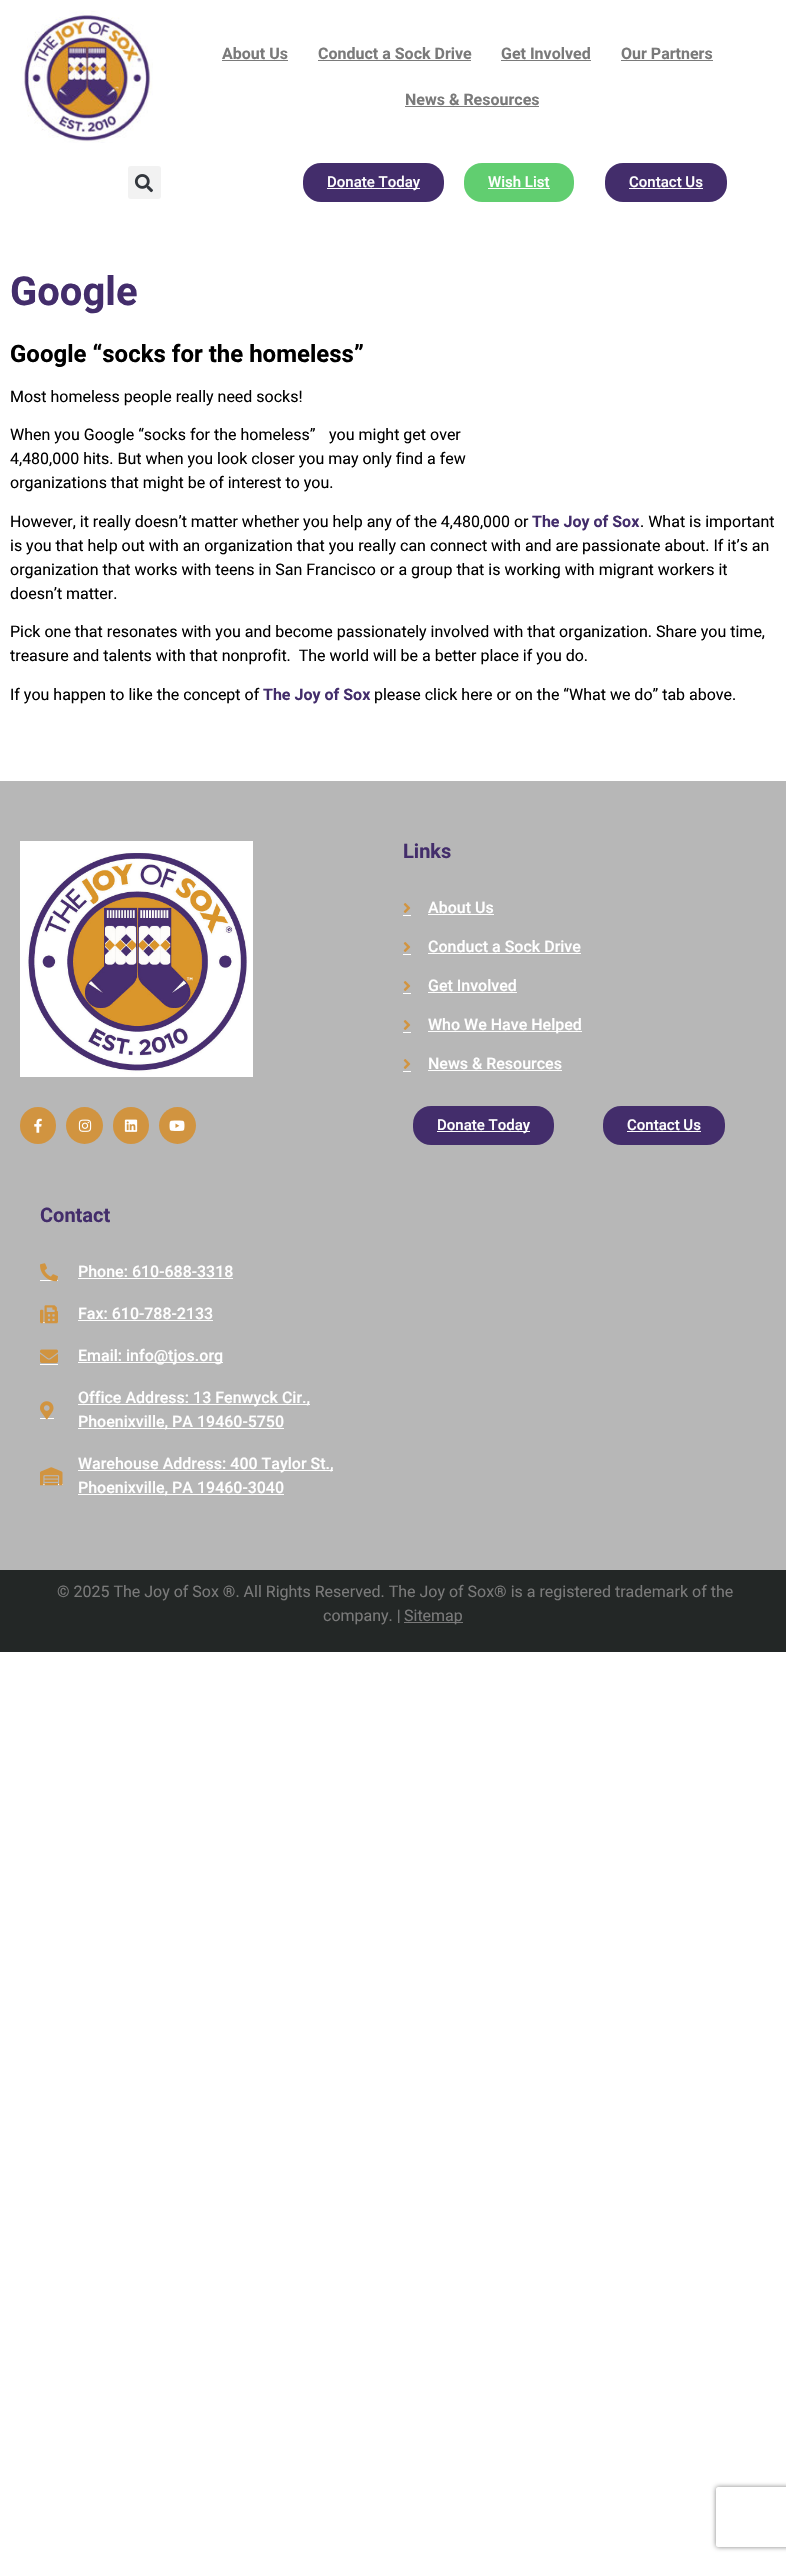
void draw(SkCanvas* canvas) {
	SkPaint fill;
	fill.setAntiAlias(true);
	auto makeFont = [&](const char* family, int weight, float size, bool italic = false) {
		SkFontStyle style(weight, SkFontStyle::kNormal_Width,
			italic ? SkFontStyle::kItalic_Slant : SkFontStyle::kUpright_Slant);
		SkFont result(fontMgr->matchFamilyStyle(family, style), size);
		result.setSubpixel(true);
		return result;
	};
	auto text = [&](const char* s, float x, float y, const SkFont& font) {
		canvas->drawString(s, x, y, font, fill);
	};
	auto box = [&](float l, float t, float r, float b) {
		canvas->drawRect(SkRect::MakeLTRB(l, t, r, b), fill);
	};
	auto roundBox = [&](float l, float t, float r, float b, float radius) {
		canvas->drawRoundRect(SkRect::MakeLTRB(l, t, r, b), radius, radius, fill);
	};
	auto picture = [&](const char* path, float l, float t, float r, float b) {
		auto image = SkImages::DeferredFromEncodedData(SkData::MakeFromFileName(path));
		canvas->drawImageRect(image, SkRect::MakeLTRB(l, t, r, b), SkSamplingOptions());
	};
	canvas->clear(0xFFFFFFFF);
	picture("image0.png", 20, 10, 153, 143);
	fill.setColor(0xFF7A7A7A);
	box(222, 60, 288, 61);
	box(318, 60, 471, 61);
	box(501, 60, 591, 61);
	box(621, 60, 713, 61);
	box(405, 106, 539, 107);
	fill.setColor(0xFFF2F2F2);
	roundBox(128, 166, 161, 199, 3);
	picture("image1.png", 134, 174, 153, 193);
	fill.setColor(0xFF432D6B);
	roundBox(303, 163, 444, 202, 18);
	fill.setColor(0xFFFFFFFF);
	box(327, 188, 420, 189);
	fill.setColor(0xFF61CE70);
	roundBox(464, 163, 574, 202, 18);
	fill.setColor(0xFFFFFFFF);
	box(488, 188, 550, 189);
	fill.setColor(0xFF432D6B);
	roundBox(605, 163, 727, 202, 18);
	fill.setColor(0xFFFFFFFF);
	box(629, 188, 703, 189);
	fill.setColor(0xFFB7B7B7);
	box(0, 781, 786, 1570);
	picture("image2.png", 20, 841, 253, 1077);
	fill.setColor(0xFFD19440);
	roundBox(20, 1107, 56, 1144, 18);
	picture("image3.png", 34, 1118, 42, 1133);
	canvas->drawCircle(84.5f, 1125.5f, 18.5f, fill);
	picture("image4.png", 78, 1119, 92, 1132);
	roundBox(113, 1107, 149, 1144, 18);
	picture("image5.png", 124, 1119, 138, 1132);
	canvas->drawCircle(177.5f, 1125.5f, 18.5f, fill);
	picture("image6.png", 169, 1120, 185, 1131);
	picture("image7.png", 403, 903, 411, 913);
	fill.setColor(0xFFFFFFFF);
	box(403, 915, 411, 916);
	box(428, 914, 494, 915);
	picture("image7.png", 403, 942, 411, 952);
	box(403, 954, 411, 955);
	box(428, 953, 581, 954);
	picture("image7.png", 403, 981, 411, 991);
	box(403, 993, 411, 994);
	box(428, 992, 517, 993);
	picture("image7.png", 403, 1020, 411, 1030);
	box(403, 1032, 411, 1033);
	box(428, 1031, 582, 1032);
	picture("image7.png", 403, 1059, 411, 1069);
	box(403, 1071, 411, 1072);
	box(428, 1070, 562, 1071);
	fill.setColor(0xFF432D6B);
	roundBox(413, 1106, 554, 1145, 18);
	fill.setColor(0xFFFFFFFF);
	box(437, 1131, 530, 1132);
	fill.setColor(0xFF432D6B);
	roundBox(603, 1106, 725, 1145, 18);
	fill.setColor(0xFFFFFFFF);
	box(627, 1131, 701, 1132);
	box(40, 1280, 58, 1281);
	picture("image8.png", 40, 1263, 58, 1282);
	box(78, 1278, 233, 1279);
	box(40, 1322, 58, 1323);
	picture("image9.png", 40, 1305, 58, 1324);
	box(78, 1320, 213, 1321);
	picture("image10.png", 40, 1349, 58, 1363);
	box(40, 1364, 58, 1365);
	box(78, 1362, 223, 1363);
	box(40, 1418, 54, 1419);
	picture("image11.png", 40, 1401, 54, 1420);
	box(78, 1404, 310, 1405);
	box(78, 1428, 284, 1429);
	box(40, 1484, 63, 1485);
	picture("image12.png", 40, 1467, 63, 1486);
	box(78, 1470, 333, 1471);
	box(78, 1494, 284, 1495);
	fill.setColor(0xFF232726);
	box(0, 1570, 786, 1652);
	fill.setColor(0xFF7A7A7A);
	box(404, 1622, 463, 1623);
	canvas->save();
	canvas->clipPath(SkPathBuilder(SkPathFillType::kEvenOdd).moveTo(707, 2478).lineTo(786, 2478).lineTo(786, 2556).lineTo(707, 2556).close().moveTo(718, 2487).lineTo(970, 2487).cubicTo(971, 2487, 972, 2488, 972, 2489).lineTo(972, 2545).cubicTo(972, 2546, 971, 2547, 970, 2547).lineTo(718, 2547).cubicTo(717, 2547, 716, 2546, 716, 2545).lineTo(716, 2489).cubicTo(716, 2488, 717, 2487, 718, 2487).close().detach(), true);
	fill.setColor(0xFF808080);
	fill.setMaskFilter(SkMaskFilter::MakeBlur(kNormal_SkBlurStyle, 2.5f));
	canvas->drawRoundRect(SkRect::MakeLTRB(716, 2487, 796, 2547), 2, 2, fill);
	fill.setMaskFilter(nullptr);
	canvas->restore();
	auto font1 = makeFont("Roboto", 700, 16);
	fill.setColor(0xFF7A7A7A);
	text("About Us", 222, 59, font1);
	text("Conduct a Sock Drive", 318, 59, font1);
	text("Get Involved", 501, 59, font1);
	text("Our Partners", 621, 59, font1);
	text("News & Resources", 405, 105, font1);
	auto font2 = makeFont("Roboto", 500, 15);
	fill.setColor(0xFFFFFFFF);
	text("Donate Today", 327, 187, font2);
	text("Wish List", 488, 187, font2);
	text("Contact Us", 629, 187, font2);
	auto font3 = makeFont("Roboto", 700, 40);
	fill.setColor(0xFF432D6B);
	text("Google", 10, 305, font3);
	auto font4 = makeFont("Roboto", 700, 24);
	fill.setColor(0xFF000000);
	text("Google “socks for the homeless”", 10, 362, font4);
	auto font5 = makeFont("Roboto", 400, 16);
	text("Most homeless people really need socks!", 10, 402, font5);
	text("When you Google “socks for the homeless”", 10, 440, font5);
	text("you might get over", 329, 440, font5);
	text("4,480,000 hits. But when you look closer you may only find a few", 10, 464, font5);
	text("organizations that might be of interest to you.", 10, 488, font5);
	text("However, it really doesn’t matter whether you help any of the 4,480,000 or", 10, 527, font5);
	fill.setColor(0xFF432D6B);
	text("The Joy of Sox", 532, 527, font1);
	fill.setColor(0xFF000000);
	text(". What is important", 640, 527, font5);
	text("is you that help out with an organization that you really can connect with and are passionate about. If it’s an", 10, 551, font5);
	text("organization that works with teens in San Francisco or a group that is working with migrant workers it", 10, 575, font5);
	text("doesn’t matter.", 10, 599, font5);
	text("Pick one that resonates with you and become passionately involved with that organization. Share you time,", 10, 637, font5);
	text("treasure and talents with that nonprofit.  The world will be a better place if you do.", 10, 661, font5);
	text("If you happen to like the concept of", 10, 700, font5);
	fill.setColor(0xFF432D6B);
	text("The Joy of Sox", 263, 700, font1);
	fill.setColor(0xFF000000);
	text("please click here or on the “What we do” tab above.", 374, 700, font5);
	auto font6 = makeFont("Roboto", 700, 20);
	fill.setColor(0xFF432D6B);
	text("Links", 403, 858, font6);
	auto font7 = makeFont("Roboto", 500, 16);
	fill.setColor(0xFFFFFFFF);
	text("About Us", 428, 913, font7);
	text("Conduct a Sock Drive", 428, 952, font7);
	text("Get Involved", 428, 991, font7);
	text("Who We Have Helped", 428, 1030, font7);
	text("News & Resources", 428, 1069, font7);
	text("Donate Today", 437, 1130, font2);
	text("Contact Us", 627, 1130, font2);
	fill.setColor(0xFF432D6B);
	text("Contact", 40, 1222, font6);
	fill.setColor(0xFFFFFFFF);
	text("Phone: 610-688-3318", 78, 1277, font7);
	text("Fax: 610-788-2133", 78, 1319, font7);
	text("Email: info@tjos.org", 78, 1361, font7);
	text("Office Address: 13 Fenwyck Cir.,", 78, 1403, font7);
	text("Phoenixville, PA 19460-5750", 78, 1427, font7);
	text("Warehouse Address: 400 Taylor St.,", 78, 1469, font7);
	text("Phoenixville, PA 19460-3040", 78, 1493, font7);
	fill.setColor(0xFF7A7A7A);
	text("© 2025 The Joy of Sox ®. All Rights Reserved. The Joy of Sox® is a registered trademark of the", 57, 1597, font5);
	text("company. |", 323, 1621, font5);
	text("Sitemap", 404, 1621, font5);
}
